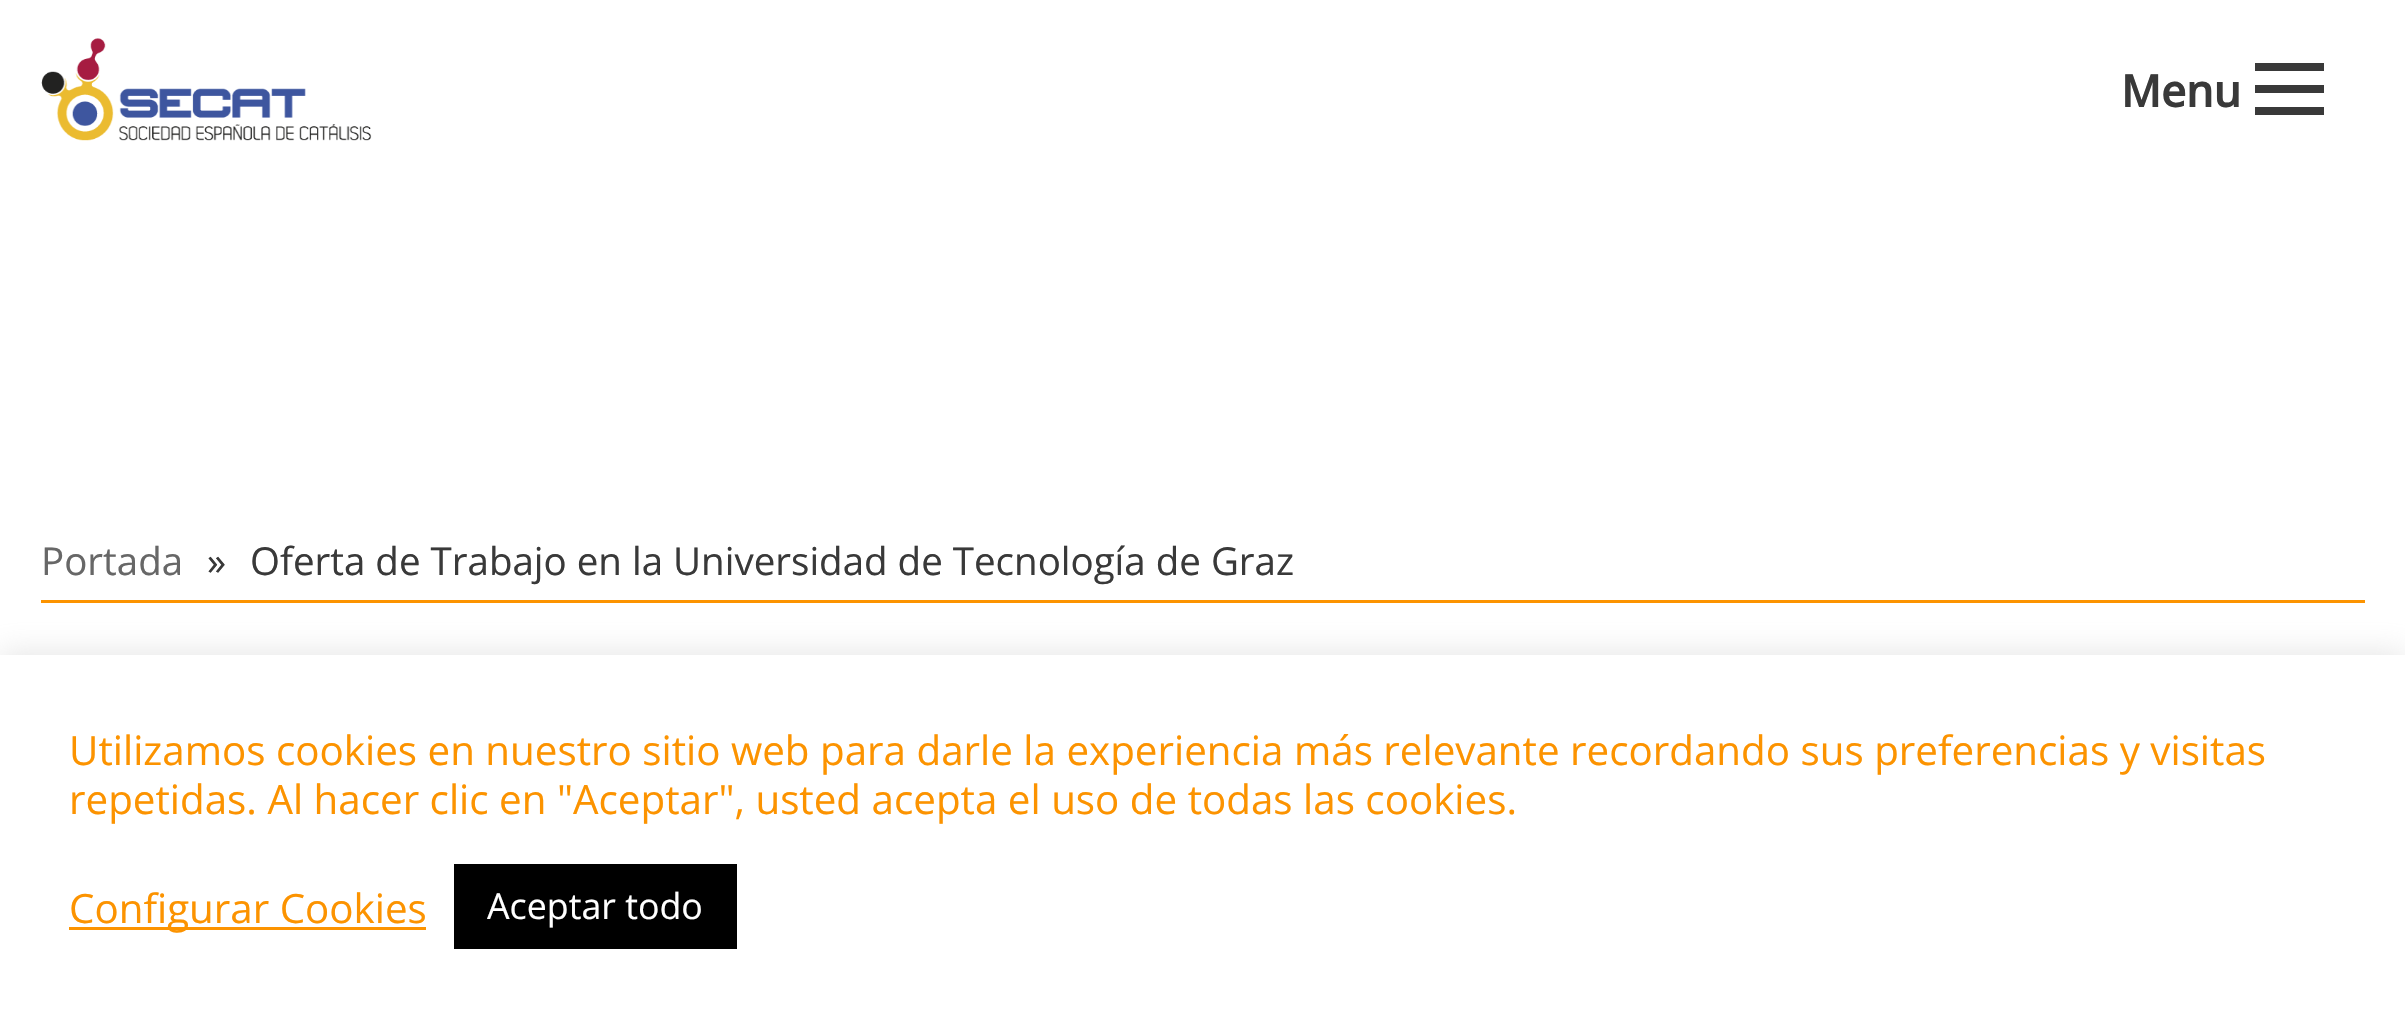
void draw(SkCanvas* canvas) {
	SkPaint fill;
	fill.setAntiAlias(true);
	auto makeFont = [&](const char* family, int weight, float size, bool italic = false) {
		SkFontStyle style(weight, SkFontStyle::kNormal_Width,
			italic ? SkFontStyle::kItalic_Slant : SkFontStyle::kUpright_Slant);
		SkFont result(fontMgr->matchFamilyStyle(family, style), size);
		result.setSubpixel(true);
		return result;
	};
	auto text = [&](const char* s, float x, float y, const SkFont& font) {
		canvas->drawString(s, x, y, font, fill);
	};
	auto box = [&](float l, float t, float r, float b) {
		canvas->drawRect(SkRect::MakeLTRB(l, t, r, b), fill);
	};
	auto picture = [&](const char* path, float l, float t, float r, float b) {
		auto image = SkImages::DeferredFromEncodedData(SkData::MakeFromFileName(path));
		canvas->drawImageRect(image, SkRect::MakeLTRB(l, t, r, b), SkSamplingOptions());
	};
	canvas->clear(0xFFFFFFFF);
	picture("image0.png", 41, 38, 372, 141);
	fill.setColor(0xFF393939);
	box(2255, 63, 2324, 71);
	box(2255, 85, 2324, 93);
	box(2255, 107, 2324, 115);
	fill.setColor(0xFFFC9300);
	box(41, 600, 2365, 603);
	fill.setColor(0x4DACABAB);
	fill.setMaskFilter(SkMaskFilter::MakeBlur(kNormal_SkBlurStyle, 14));
	canvas->drawRect(SkRect::MakeLTRB(0, 652, 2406, 1029), fill);
	fill.setMaskFilter(nullptr);
	fill.setColor(0xFFFFFFFF);
	box(0, 655, 2405, 1031);
	fill.setColor(0xFFFC9300);
	box(69, 927, 426, 930);
	fill.setColor(0xFF000000);
	box(454, 864, 737, 949);
	auto font1 = makeFont("Open Sans", 700, 44);
	fill.setColor(0xFF393939);
	text("Menu", 2121, 107, font1);
	auto font2 = makeFont("Open Sans", 400, 38.5f);
	fill.setColor(0xFF676767);
	text("Portada", 41, 575, font2);
	fill.setColor(0xFF393939);
	text("»", 207, 575, font2);
	text("Oferta de Trabajo en la Universidad de Tecnología de Graz", 250, 575, font2);
	auto font3 = makeFont("Open Sans", 400, 40.33f);
	fill.setColor(0xFFFC9300);
	text("Utilizamos cookies en nuestro sitio web para darle la experiencia más relevante recordando sus preferencias y visitas", 69, 765, font3);
	text("repetidas. Al hacer clic en \"Aceptar\", usted acepta el uso de todas las cookies.", 69, 814, font3);
	text("Configurar Cookies", 69, 923, font3);
	auto font4 = makeFont("Open Sans", 400, 35.75f);
	fill.setColor(0xFFFFFFFF);
	text("Aceptar todo", 487, 919, font4);
}
